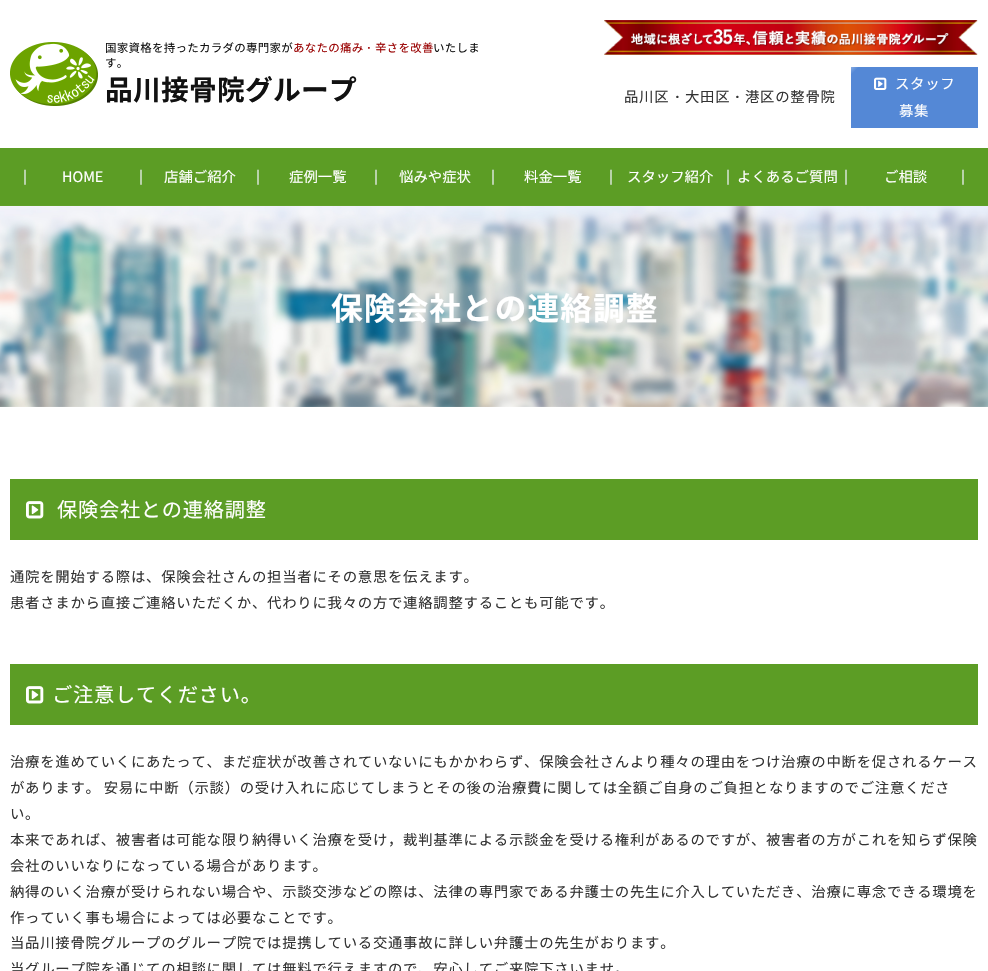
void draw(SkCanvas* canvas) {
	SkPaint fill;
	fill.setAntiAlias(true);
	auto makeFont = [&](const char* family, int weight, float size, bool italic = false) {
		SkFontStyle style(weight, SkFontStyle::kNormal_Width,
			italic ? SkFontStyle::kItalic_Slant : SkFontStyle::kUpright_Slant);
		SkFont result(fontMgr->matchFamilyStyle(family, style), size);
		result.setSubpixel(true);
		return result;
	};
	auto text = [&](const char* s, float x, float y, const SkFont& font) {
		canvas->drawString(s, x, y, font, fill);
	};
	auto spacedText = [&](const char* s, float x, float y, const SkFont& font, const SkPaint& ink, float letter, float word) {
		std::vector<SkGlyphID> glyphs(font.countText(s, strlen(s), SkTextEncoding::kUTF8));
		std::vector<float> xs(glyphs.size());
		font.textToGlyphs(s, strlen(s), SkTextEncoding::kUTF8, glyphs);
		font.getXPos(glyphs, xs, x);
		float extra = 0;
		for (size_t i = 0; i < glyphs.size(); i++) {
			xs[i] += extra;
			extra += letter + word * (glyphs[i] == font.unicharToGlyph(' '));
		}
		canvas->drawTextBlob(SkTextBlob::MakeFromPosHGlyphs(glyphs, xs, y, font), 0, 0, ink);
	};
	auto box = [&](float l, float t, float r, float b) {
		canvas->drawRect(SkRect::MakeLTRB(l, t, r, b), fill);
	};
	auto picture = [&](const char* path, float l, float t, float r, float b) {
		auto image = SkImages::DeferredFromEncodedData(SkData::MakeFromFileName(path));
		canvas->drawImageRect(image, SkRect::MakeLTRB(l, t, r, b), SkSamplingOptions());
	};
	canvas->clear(0xFFFFFFFF);
	picture("image0.png", 10, 42, 98, 106);
	picture("image1.png", 604, 20, 978, 55);
	fill.setColor(0xFF5488D6);
	box(851, 67, 978, 128);
	canvas->save();
	canvas->clipRect(SkRect::MakeLTRB(851, 67, 978, 128));
	{
		const SkColor colors[] = {0xFF5488D6, 0xFFDDE7F7, 0xFF5488D6};
		const float stops[] = {0, 0.5f, 1};
		const SkPoint ends[] = {{782, 102}, {803, 123}};
		fill.setShader(SkGradientShader::MakeLinear(ends, colors, stops, 3, SkTileMode::kClamp));
		fill.setAlpha(255);
	}
	canvas->drawPath(SkPathBuilder().moveTo(853, 31).lineTo(874, 52).lineTo(803, 123).lineTo(782, 102).close().detach(), fill);
	canvas->restore();
	picture("image2.png", 874, 77, 887, 90);
	fill.setShader(nullptr);
	fill.setColor(0xFF5C9D25);
	box(0, 148, 988, 206);
	picture("image3.png", 24, 169, 26, 185);
	picture("image3.png", 140, 169, 142, 185);
	picture("image3.png", 257, 169, 259, 185);
	picture("image3.png", 375, 169, 377, 185);
	picture("image3.png", 492, 169, 494, 185);
	picture("image3.png", 610, 169, 612, 185);
	picture("image3.png", 727, 169, 729, 185);
	picture("image3.png", 845, 169, 847, 185);
	picture("image3.png", 962, 169, 964, 185);
	picture("image4.png", 0, 205, 988, 407);
	box(10, 479, 978, 540);
	picture("image5.png", 26, 501, 44, 519);
	box(10, 664, 978, 725);
	picture("image5.png", 26, 686, 44, 704);
	auto font1 = makeFont("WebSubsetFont", 400, 11.5f);
	fill.setColor(0xFF111111);
	spacedText("国家資格を持ったカラダの専門家が", 105, 52, font1, fill, 0.25f, 0);
	fill.setColor(0xFF990000);
	spacedText("あなたの痛み", 293, 52, font1, fill, 0.25f, 0);
	auto font2 = makeFont("WenQuanYi Zen Hei", 500, 11.5f);
	spacedText("・", 363, 52, font2, fill, 0.25f, 0);
	spacedText("辛さを改善", 375, 52, font1, fill, 0.25f, 0);
	fill.setColor(0xFF111111);
	spacedText("いたしま", 433, 52, font1, fill, 0.25f, 0);
	spacedText("す。", 105, 67, font1, fill, 0.25f, 0);
	auto font3 = makeFont("WebSubsetFont", 700, 27.75f);
	spacedText("品川接骨院グループ", 105, 100, font3, fill, 0.25f, 0);
	auto font4 = makeFont("WebSubsetFont", 400, 14.4f);
	fill.setColor(0xFF333333);
	spacedText("品川区", 624, 102, font4, fill, 0.72f, 0);
	auto font5 = makeFont("WenQuanYi Zen Hei", 500, 14.4f);
	spacedText("・", 670, 102, font5, fill, 0.72f, 0);
	spacedText("大田区", 685, 102, font4, fill, 0.72f, 0);
	spacedText("・", 730, 102, font5, fill, 0.72f, 0);
	spacedText("港区の整骨院", 745, 102, font4, fill, 0.72f, 0);
	fill.setColor(0xFFFFFFFF);
	spacedText("スタッフ", 895, 89, font4, fill, 0.72f, 0);
	spacedText("募集", 899, 116, font4, fill, 0.72f, 0);
	text("HOME", 62, 182, font4);
	text("店舗ご紹介", 164, 182, font4);
	text("症例一覧", 289, 182, font4);
	text("悩みや症状", 399, 182, font4);
	text("料金一覧", 524, 182, font4);
	text("スタッフ紹介", 627, 182, font4);
	text("よくあるご質問", 737, 182, font4);
	text("ご相談", 884, 182, font4);
	auto font6 = makeFont("WebSubsetFont", 700, 31.75f);
	spacedText("保険会社との連絡調整", 331, 320, font6, fill, 1, 0);
	auto font7 = makeFont("WebSubsetFont", 400, 20.25f);
	spacedText("保険会社との連絡調整", 57, 517, font7, fill, 0.72f, 0);
	fill.setColor(0xFF333333);
	spacedText("通院を開始する際は、保険会社さんの担当者にその意思を伝えます。", 10, 582, font4, fill, 0.72f, 0);
	spacedText("患者さまから直接ご連絡いただくか、代わりに我々の方で連絡調整することも可能です。", 10, 608, font4, fill, 0.72f, 0);
	fill.setColor(0xFFFFFFFF);
	spacedText("ご注意してください。", 52, 702, font7, fill, 0.72f, 0);
	fill.setColor(0xFF333333);
	spacedText("治療を進めていくにあたって、まだ症状が改善されていないにもかかわらず、保険会社さんより種々の理由をつけ治療の中断を促されるケース", 10, 767, font4, fill, 0.72f, 0);
	spacedText("があります。 安易に中断（示談）の受け入れに応じてしまうとその後の治療費に関しては全額ご自身のご負担となりますのでご注意くださ", 10, 793, font4, fill, 0.72f, -1);
	spacedText("い。", 10, 819, font4, fill, 0.72f, 0);
	spacedText("本来であれば、被害者は可能な限り納得いく治療を受け，裁判基準による示談金を受ける権利があるのですが、被害者の方がこれを知らず保険", 10, 845, font4, fill, 0.72f, 0);
	spacedText("会社のいいなりになっている場合があります。", 10, 871, font4, fill, 0.72f, 0);
	spacedText("納得のいく治療が受けられない場合や、示談交渉などの際は、法律の専門家である弁護士の先生に介入していただき、治療に専念できる環境を", 10, 897, font4, fill, 0.72f, 0);
	spacedText("作っていく事も場合によっては必要なことです。", 10, 923, font4, fill, 0.72f, 0);
	spacedText("当品川接骨院グループのグループ院では提携している交通事故に詳しい弁護士の先生がおります。", 10, 948, font4, fill, 0.72f, 0);
	spacedText("当グループ院を通じての相談に関しては無料で行えますので、安心してご来院下さいませ。", 10, 974, font4, fill, 0.72f, 0);
}
